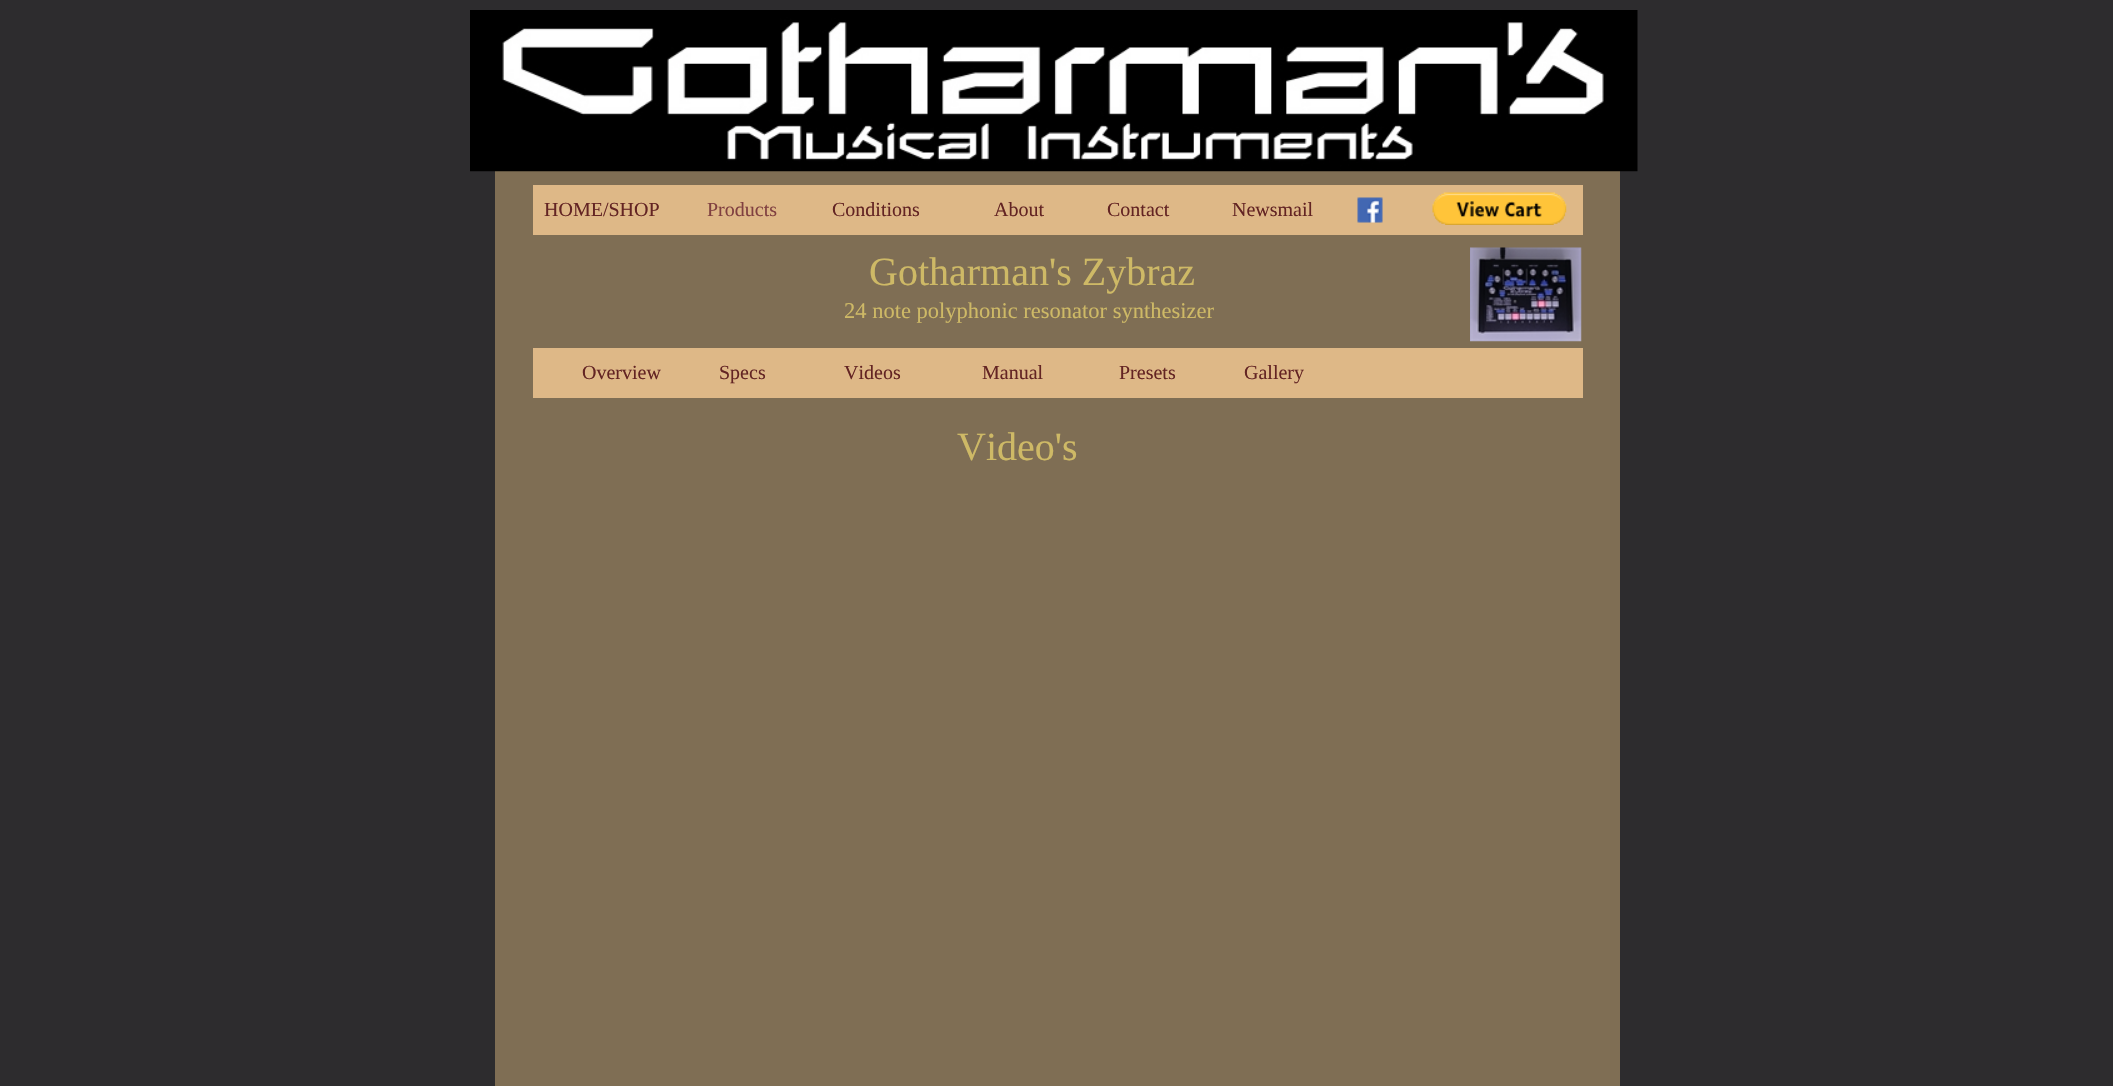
void draw(SkCanvas* canvas) {
	SkPaint fill;
	fill.setAntiAlias(true);
	auto makeFont = [&](const char* family, int weight, float size, bool italic = false) {
		SkFontStyle style(weight, SkFontStyle::kNormal_Width,
			italic ? SkFontStyle::kItalic_Slant : SkFontStyle::kUpright_Slant);
		SkFont result(fontMgr->matchFamilyStyle(family, style), size);
		result.setSubpixel(true);
		return result;
	};
	auto text = [&](const char* s, float x, float y, const SkFont& font) {
		canvas->drawString(s, x, y, font, fill);
	};
	auto box = [&](float l, float t, float r, float b) {
		canvas->drawRect(SkRect::MakeLTRB(l, t, r, b), fill);
	};
	auto picture = [&](const char* path, float l, float t, float r, float b) {
		auto image = SkImages::DeferredFromEncodedData(SkData::MakeFromFileName(path));
		canvas->drawImageRect(image, SkRect::MakeLTRB(l, t, r, b), SkSamplingOptions());
	};
	canvas->clear(0xFF2D2C2E);
	fill.setColor(0xFF7F6E54);
	box(495, 171, 1620, 1086);
	picture("image0.png", 470, 10, 1638, 172);
	fill.setColor(0xFFDEB887);
	box(533, 185, 1583, 235);
	picture("image1.png", 1357, 197, 1383, 223);
	picture("image2.png", 1432, 192, 1567, 225);
	picture("image3.png", 1470, 247, 1582, 342);
	box(533, 348, 1583, 398);
	auto font1 = makeFont("Liberation Serif", 400, 20);
	fill.setColor(0xFF632423);
	text("HOME/SHOP", 544, 216, font1);
	fill.setColor(0xFF804040);
	text("Products", 707, 216, font1);
	fill.setColor(0xFF632423);
	text("Conditions", 832, 216, font1);
	text("About", 994, 216, font1);
	text("Contact", 1107, 216, font1);
	text("Newsmail", 1232, 216, font1);
	auto font2 = makeFont("Liberation Serif", 400, 40);
	fill.setColor(0xFFCEB966);
	text("Gotharman's Zybraz", 869, 285, font2);
	auto font3 = makeFont("Liberation Serif", 400, 22.5f);
	text("24 note polyphonic resonator synthesizer", 844, 318, font3);
	fill.setColor(0xFF632423);
	text("Overview", 582, 379, font1);
	text("Specs", 719, 379, font1);
	text("Videos", 844, 379, font1);
	text("Manual", 982, 379, font1);
	text("Presets", 1119, 379, font1);
	text("Gallery", 1244, 379, font1);
	fill.setColor(0xFFCEB966);
	text("Video's", 957, 460, font2);
}
